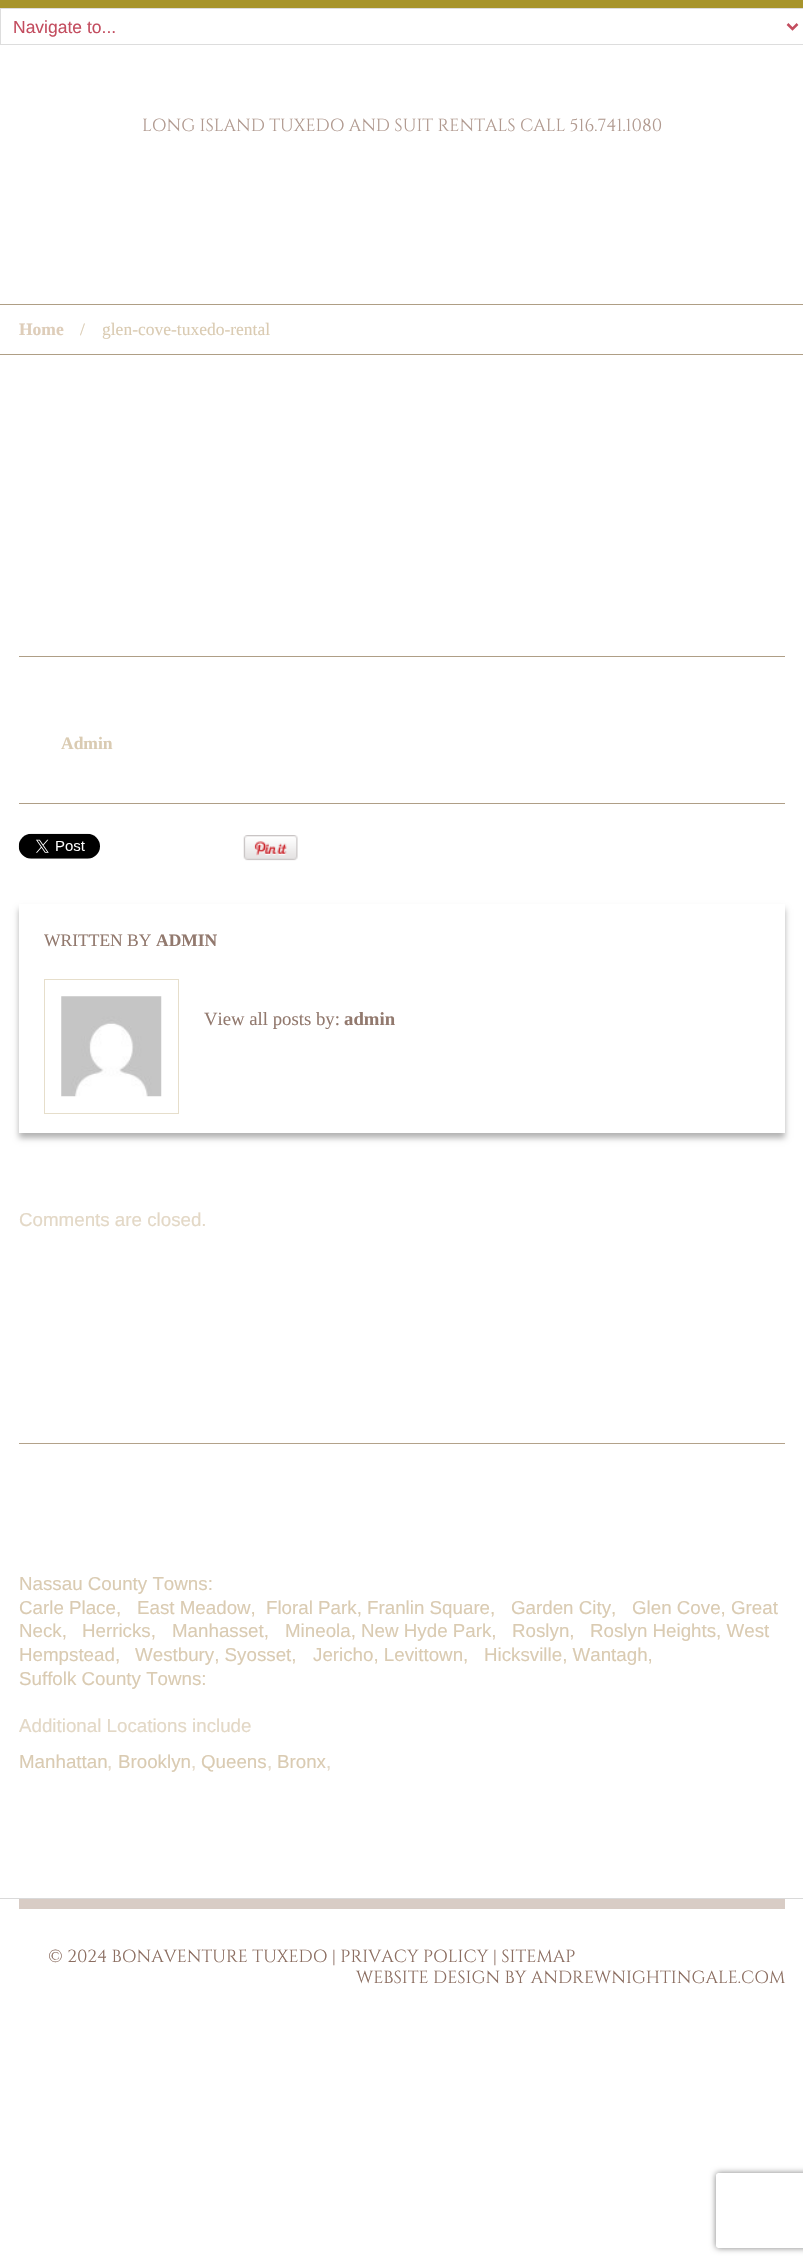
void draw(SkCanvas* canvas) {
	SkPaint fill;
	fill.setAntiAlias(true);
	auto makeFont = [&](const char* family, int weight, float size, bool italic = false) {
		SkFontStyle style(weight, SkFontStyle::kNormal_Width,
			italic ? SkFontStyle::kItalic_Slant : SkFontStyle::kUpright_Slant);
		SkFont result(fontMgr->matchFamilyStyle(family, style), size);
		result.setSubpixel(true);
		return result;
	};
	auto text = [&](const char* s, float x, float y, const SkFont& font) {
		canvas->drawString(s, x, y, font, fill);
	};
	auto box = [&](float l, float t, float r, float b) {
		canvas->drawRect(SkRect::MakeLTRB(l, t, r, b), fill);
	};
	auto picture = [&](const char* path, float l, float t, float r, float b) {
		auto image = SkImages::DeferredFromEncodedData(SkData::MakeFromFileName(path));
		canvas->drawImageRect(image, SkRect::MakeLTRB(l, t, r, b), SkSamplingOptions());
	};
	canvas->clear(0xFFFFFFFF);
	fill.setColor(0xFFA7942C);
	box(0, 0, 803, 8);
	fill.setStyle(SkPaint::kStroke_Style);
	fill.setStrokeWidth(1);
	fill.setColor(0xFFDDDDDD);
	canvas->drawRect(SkRect::MakeLTRB(0.5f, 8.5f, 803.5f, 44.5f), fill);
	fill.setStrokeWidth(2.5f);
	fill.setColor(0xFFC34D5F);
	canvas->drawPath(SkPathBuilder().moveTo(787.5f, 24).lineTo(792.5f, 29).lineTo(797.5f, 24).detach(), fill);
	fill.setStyle(SkPaint::kFill_Style);
	fill.setColor(0xFFAF9E85);
	box(0, 304, 803, 305);
	box(0, 354, 803, 355);
	fill.setColor(0xFFAF9E86);
	box(19, 656, 785, 657);
	box(19, 803, 785, 804);
	picture("image0.png", 18, 833, 100, 859);
	picture("image1.png", 243, 835, 298, 861);
	fill.setColor(0x4D000000);
	fill.setMaskFilter(SkMaskFilter::MakeBlur(kNormal_SkBlurStyle, 3));
	canvas->drawRect(SkRect::MakeLTRB(19, 909, 785, 1138), fill);
	fill.setMaskFilter(nullptr);
	fill.setColor(0xFFFFFFFF);
	box(19, 904, 785, 1133);
	fill.setStyle(SkPaint::kStroke_Style);
	fill.setStrokeWidth(1);
	fill.setColor(0xFFE6DECB);
	canvas->drawRect(SkRect::MakeLTRB(44.5f, 979.5f, 178.5f, 1113.5f), fill);
	picture("image2.png", 61, 996, 162, 1097);
	fill.setStyle(SkPaint::kFill_Style);
	fill.setColor(0xFFB3A28A);
	box(19, 1443, 785, 1444);
	fill.setColor(0xFFD9D9D9);
	box(0, 1898, 803, 1899);
	fill.setColor(0xFFD8CCC5);
	box(19, 1899, 785, 1909);
	canvas->save();
	canvas->clipPath(SkPathBuilder(SkPathFillType::kEvenOdd).moveTo(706, 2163).lineTo(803, 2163).lineTo(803, 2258).lineTo(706, 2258).close().moveTo(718.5f, 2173).lineTo(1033.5f, 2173).cubicTo(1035, 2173, 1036, 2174, 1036, 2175.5f).lineTo(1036, 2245.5f).cubicTo(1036, 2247, 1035, 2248, 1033.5f, 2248).lineTo(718.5f, 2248).cubicTo(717, 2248, 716, 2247, 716, 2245.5f).lineTo(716, 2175.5f).cubicTo(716, 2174, 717, 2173, 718.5f, 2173).close().detach(), true);
	fill.setColor(0xFF808080);
	fill.setMaskFilter(SkMaskFilter::MakeBlur(kNormal_SkBlurStyle, 3));
	canvas->drawRoundRect(SkRect::MakeLTRB(716, 2173, 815, 2248), 2.5f, 2.5f, fill);
	fill.setMaskFilter(nullptr);
	canvas->restore();
	auto font1 = makeFont("Liberation Sans", 400, 17.5f);
	fill.setColor(0xFFC34D5F);
	text("Navigate to...", 13, 33, font1);
	auto font2 = makeFont("Cinzel", 400, 17.5f);
	fill.setColor(0xFFB19A90);
	text("LONG ISLAND TUXEDO AND SUIT RENTALS CALL 516.741.1080", 142, 131, font2);
	auto font3 = makeFont("Liberation Serif", 700, 17.5f);
	fill.setColor(0xFFDECDB9);
	text("Home", 19, 335, font3);
	auto font4 = makeFont("Liberation Serif", 400, 17.5f);
	fill.setColor(0xFFDACBB2);
	text("/", 80, 335, font4);
	text("glen-cove-tuxedo-rental", 102, 335, font4);
	text("Admin", 61, 749, font3);
	fill.setColor(0xFF92796E);
	text("WRITTEN BY", 44, 946, font4);
	text("ADMIN", 156, 946, font3);
	auto font5 = makeFont("Liberation Serif", 400, 18.75f);
	text("View all posts by:", 204, 1025, font5);
	auto font6 = makeFont("Liberation Serif", 700, 18.75f);
	text("admin", 344, 1025, font6);
	auto font7 = makeFont("Liberation Sans", 400, 18.75f);
	fill.setColor(0xFFE3D8C6);
	text("Comments are closed.", 19, 1226, font7);
	fill.setColor(0xFFDACBB2);
	text("Nassau County Towns:", 19, 1590, font7);
	text("Carle Place,", 19, 1614, font7);
	text("East Meadow,", 137, 1614, font7);
	text("Floral Park, Franlin Square,", 266, 1614, font7);
	text("Garden City,", 511, 1614, font7);
	text("Glen Cove, Great", 632, 1614, font7);
	text("Neck,", 19, 1637, font7);
	text("Herricks,", 82, 1637, font7);
	text("Manhasset,", 172, 1637, font7);
	text("Mineola, New Hyde Park,", 285, 1637, font7);
	text("Roslyn,", 512, 1637, font7);
	text("Roslyn Heights, West", 590, 1637, font7);
	text("Hempstead,", 19, 1661, font7);
	text("Westbury, Syosset,", 135, 1661, font7);
	text("Jericho, Levittown,", 313, 1661, font7);
	text("Hicksville, Wantagh,", 484, 1661, font7);
	text("Suffolk County Towns:", 19, 1685, font7);
	fill.setColor(0xFFE3D8C6);
	text("Additional Locations include", 19, 1732, font7);
	fill.setColor(0xFFDACBB2);
	text("Manhattan", 19, 1768, font7);
	fill.setColor(0xFFE3D8C6);
	text(",", 107, 1768, font7);
	fill.setColor(0xFFDACBB2);
	text("Brooklyn", 118, 1768, font7);
	fill.setColor(0xFFE3D8C6);
	text(",", 191, 1768, font7);
	fill.setColor(0xFFDACBB2);
	text("Queens", 201, 1768, font7);
	fill.setColor(0xFFE3D8C6);
	text(",", 267, 1768, font7);
	fill.setColor(0xFFDACBB2);
	text("Bronx", 277, 1768, font7);
	fill.setColor(0xFFE3D8C6);
	text(",", 326, 1768, font7);
	fill.setColor(0xFF8C6E61);
	text("© 2024 BONAVENTURE TUXEDO | PRIVACY POLICY | SITEMAP", 48, 1962, font2);
	text("WEBSITE DESIGN BY ANDREWNIGHTINGALE.COM", 356, 1983, font2);
}
